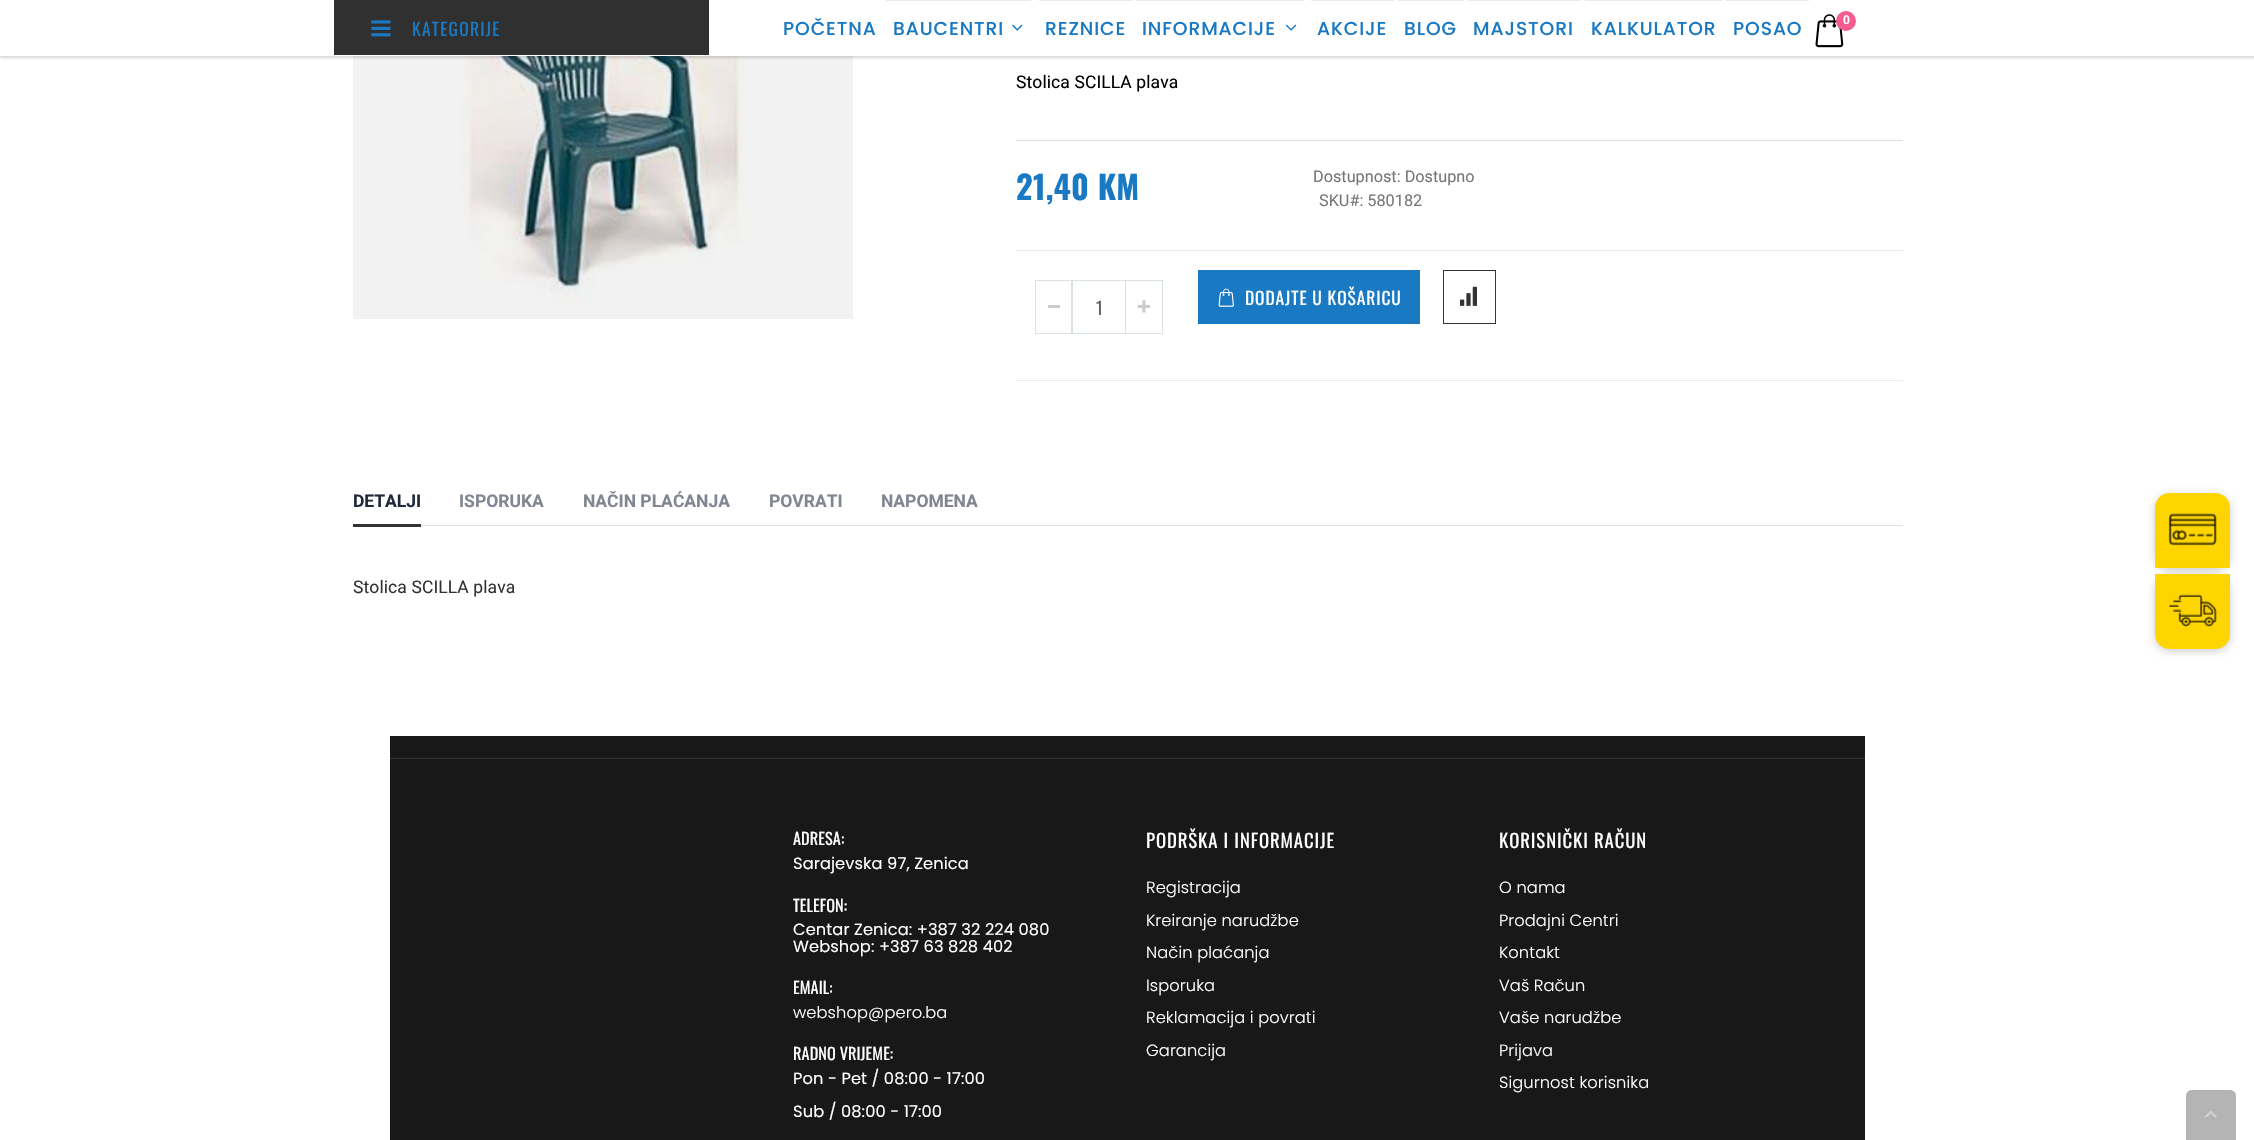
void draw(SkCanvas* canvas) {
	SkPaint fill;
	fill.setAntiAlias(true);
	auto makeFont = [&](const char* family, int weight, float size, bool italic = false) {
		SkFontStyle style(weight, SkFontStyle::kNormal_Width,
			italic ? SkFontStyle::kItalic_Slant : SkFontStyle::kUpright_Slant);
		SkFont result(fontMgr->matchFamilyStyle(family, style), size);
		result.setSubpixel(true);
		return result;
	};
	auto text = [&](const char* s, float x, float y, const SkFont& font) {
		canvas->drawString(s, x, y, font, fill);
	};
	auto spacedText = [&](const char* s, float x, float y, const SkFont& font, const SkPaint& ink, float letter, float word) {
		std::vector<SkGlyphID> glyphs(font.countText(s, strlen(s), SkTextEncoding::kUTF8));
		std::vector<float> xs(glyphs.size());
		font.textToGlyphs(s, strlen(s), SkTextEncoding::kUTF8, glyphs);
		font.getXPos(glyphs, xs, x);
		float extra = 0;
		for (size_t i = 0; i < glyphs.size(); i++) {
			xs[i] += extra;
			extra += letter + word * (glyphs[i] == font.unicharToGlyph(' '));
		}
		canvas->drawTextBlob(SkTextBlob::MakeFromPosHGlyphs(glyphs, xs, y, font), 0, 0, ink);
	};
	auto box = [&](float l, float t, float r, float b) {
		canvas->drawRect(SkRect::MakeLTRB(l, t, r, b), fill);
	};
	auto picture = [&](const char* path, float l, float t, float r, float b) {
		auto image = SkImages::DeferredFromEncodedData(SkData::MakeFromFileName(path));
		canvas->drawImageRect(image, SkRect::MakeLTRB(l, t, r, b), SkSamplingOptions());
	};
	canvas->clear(0xFFFFFFFF);
	fill.setColor(0xFFF2F2F2);
	box(353, 56, 853, 319);
	picture("image4.png", 460, 56, 745, 303);
	fill.setColor(0x26000000);
	fill.setMaskFilter(SkMaskFilter::MakeBlur(kNormal_SkBlurStyle, 1));
	canvas->drawRect(SkRect::MakeLTRB(0, 1, 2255, 58), fill);
	fill.setMaskFilter(nullptr);
	fill.setColor(0xFFFFFFFF);
	box(0, 0, 2254, 56);
	fill.setColor(0xFF303030);
	box(334, 0, 709, 55);
	picture("image0.png", 371, 20, 391, 37);
	fill.setColor(0xFFE6EBEE);
	box(886, 0, 1031, 1);
	picture("image1.png", 1012, 24, 1023, 31);
	box(1039, 0, 1133, 1);
	box(1136, 0, 1304, 1);
	picture("image2.png", 1285, 24, 1297, 31);
	box(1311, 0, 1394, 1);
	box(1398, 0, 1464, 1);
	box(1468, 0, 1581, 1);
	box(1585, 0, 1723, 1);
	box(1726, 0, 1809, 1);
	picture("image3.png", 1815, 14, 1844, 48);
	fill.setColor(0xFFF45B91);
	canvas->drawCircle(1846, 21, 10, fill);
	fill.setColor(0xFFDAE2E6);
	box(1016, 140, 1903, 141);
	fill.setColor(0xFFEBEBEB);
	box(1016, 250, 1903, 251);
	fill.setColor(0xFF1979C3);
	box(1198, 270, 1420, 324);
	picture("image5.png", 1218, 288, 1234, 307);
	fill.setStyle(SkPaint::kStroke_Style);
	fill.setStrokeWidth(1);
	fill.setColor(0xFF333333);
	canvas->drawRect(SkRect::MakeLTRB(1443.5f, 270.5f, 1495.5f, 323.5f), fill);
	picture("image6.png", 1460, 286, 1477, 306);
	fill.setColor(0xFFDAE2E6);
	canvas->drawRect(SkRect::MakeLTRB(1071.5f, 280.5f, 1125.5f, 333.5f), fill);
	canvas->drawRect(SkRect::MakeLTRB(1035.5f, 280.5f, 1072.5f, 333.5f), fill);
	fill.setStyle(SkPaint::kFill_Style);
	fill.setColor(0xFFCCCCCC);
	box(1048, 305, 1060, 308);
	fill.setStyle(SkPaint::kStroke_Style);
	fill.setColor(0xFFDAE2E6);
	canvas->drawRect(SkRect::MakeLTRB(1125.5f, 280.5f, 1162.5f, 333.5f), fill);
	picture("image7.png", 1137, 300, 1150, 313);
	fill.setStyle(SkPaint::kFill_Style);
	fill.setColor(0xFFEBEBEB);
	box(1016, 380, 1903, 381);
	fill.setColor(0xFF333333);
	box(353, 524, 421, 527);
	fill.setColor(0xFFDAE2E6);
	box(421, 525, 1903, 526);
	fill.setColor(0x33000000);
	fill.setMaskFilter(SkMaskFilter::MakeBlur(kNormal_SkBlurStyle, 4));
	canvas->drawRoundRect(SkRect::MakeLTRB(2155, 495, 2230, 570), 15, 15, fill);
	fill.setMaskFilter(nullptr);
	fill.setColor(0xFFFFD500);
	canvas->drawPath(SkPathBuilder().moveTo(2170, 493).lineTo(2215, 493).cubicTo(2223.5f, 493, 2230, 499.5f, 2230, 508).lineTo(2230, 568).lineTo(2155, 568).lineTo(2155, 508).cubicTo(2155, 499.5f, 2161.5f, 493, 2170, 493).close().detach(), fill);
	picture("image8.png", 2168, 513, 2217, 546);
	fill.setColor(0x33000000);
	fill.setMaskFilter(SkMaskFilter::MakeBlur(kNormal_SkBlurStyle, 4));
	canvas->drawRoundRect(SkRect::MakeLTRB(2155, 576, 2230, 651), 15, 15, fill);
	fill.setMaskFilter(nullptr);
	fill.setColor(0xFFFFD500);
	canvas->drawPath(SkPathBuilder().moveTo(2155, 574).lineTo(2230, 574).lineTo(2230, 634).cubicTo(2230, 642.5f, 2223.5f, 649, 2215, 649).lineTo(2170, 649).cubicTo(2161.5f, 649, 2155, 642.5f, 2155, 634).close().detach(), fill);
	picture("image9.png", 2169, 594, 2217, 627);
	fill.setColor(0xFF181818);
	box(390, 736, 1865, 758);
	fill.setColor(0xFF3D3232);
	box(390, 758, 1865, 759);
	fill.setColor(0xFF181818);
	box(390, 759, 1865, 1140);
	fill.setColor(0xFFB4B4B4);
	canvas->drawPath(SkPathBuilder().moveTo(2192, 1090).lineTo(2230, 1090).cubicTo(2233.5f, 1090, 2236, 1092.5f, 2236, 1096).lineTo(2236, 1140).lineTo(2186, 1140).lineTo(2186, 1096).cubicTo(2186, 1092.5f, 2188.5f, 1090, 2192, 1090).close().detach(), fill);
	picture("image10.png", 2205, 1111, 2217, 1118);
	auto font1 = makeFont("Oswald", 400, 17.5f);
	fill.setColor(0xFF1979C3);
	spacedText("KATEGORIJE", 412, 36, font1, fill, 1.25f, 0);
	auto font2 = makeFont("Poppins", 500, 18.75f);
	spacedText("POČETNA", 783, 35, font2, fill, 0.9f, 0);
	spacedText("BAUCENTRI", 893, 35, font2, fill, 0.9f, 0);
	spacedText("REZNICE", 1045, 35, font2, fill, 0.9f, 0);
	spacedText("INFORMACIJE", 1142, 35, font2, fill, 0.9f, 0);
	spacedText("AKCIJE", 1317, 35, font2, fill, 0.9f, 0);
	spacedText("BLOG", 1404, 35, font2, fill, 0.9f, 0);
	spacedText("MAJSTORI", 1473, 35, font2, fill, 0.9f, 0);
	spacedText("KALKULATOR", 1591, 35, font2, fill, 0.9f, 0);
	spacedText("POSAO", 1733, 35, font2, fill, 0.9f, 0);
	auto font3 = makeFont("Roboto", 600, 12);
	fill.setColor(0xFFFFFFFF);
	text("0", 1843, 24, font3);
	auto font4 = makeFont("Roboto", 400, 17.5f);
	fill.setColor(0xFF000000);
	spacedText("Stolica SCILLA plava", 1016, 88, font4, fill, 0.1f, 0);
	auto font5 = makeFont("Oswald", 700, 32.5f);
	fill.setColor(0xFF1979C3);
	spacedText("21,40 KM", 1016, 200, font5, fill, 0.25f, 0);
	auto font6 = makeFont("Roboto", 400, 16.25f);
	fill.setColor(0xFF777777);
	text("Dostupnost: Dostupno", 1313, 182, font6);
	text("SKU#: 580182", 1319, 206, font6);
	fill.setColor(0xFFFFFFFF);
	spacedText("DODAJTE U KOŠARICU", 1245, 305, font1, fill, 0.9f, 0);
	fill.setColor(0xFF61605A);
	text("1", 1096, 315, font1);
	auto font7 = makeFont("Roboto", 700, 17.5f);
	fill.setColor(0xFF21293C);
	text("DETALJI", 353, 507, font7);
	fill.setColor(0xFF818692);
	text("ISPORUKA", 459, 507, font7);
	text("NAČIN PLAĆANJA", 583, 507, font7);
	text("POVRATI", 769, 507, font7);
	text("NAPOMENA", 881, 507, font7);
	fill.setColor(0xFF333333);
	spacedText("Stolica SCILLA plava", 353, 593, font4, fill, 0.1f, 0);
	auto font8 = makeFont("Oswald", 400, 16.25f);
	fill.setColor(0xFFFFFFFF);
	spacedText("ADRESA:", 793, 845, font8, fill, 0.1f, 0);
	auto font9 = makeFont("Poppins", 400, 16.25f);
	spacedText("Sarajevska 97, Zenica", 793, 869, font9, fill, 0.1f, 0);
	spacedText("TELEFON:", 793, 912, font8, fill, 0.1f, 0);
	spacedText("Centar Zenica: +387 32 224 080", 793, 935, font9, fill, 0.1f, 0);
	spacedText("Webshop: +387 63 828 402", 793, 952, font9, fill, 0.1f, 0);
	spacedText("EMAIL:", 793, 994, font8, fill, 0.1f, 0);
	auto font10 = makeFont("Poppins", 300, 16.25f);
	spacedText("webshop@pero.ba", 793, 1018, font10, fill, 0.1f, 0);
	spacedText("RADNO VRIJEME:", 793, 1060, font8, fill, 0.1f, 0);
	spacedText("Pon - Pet / 08:00 - 17:00", 793, 1084, font9, fill, 0.1f, 0);
	spacedText("Sub / 08:00 - 17:00", 793, 1117, font9, fill, 0.1f, 0);
	auto font11 = makeFont("Oswald", 400, 18.75f);
	spacedText("PODRŠKA I INFORMACIJE", 1146, 848, font11, fill, 0.9f, 0);
	spacedText("Registracija", 1146, 893, font10, fill, 0.1f, 0);
	spacedText("Kreiranje narudžbe", 1146, 926, font10, fill, 0.1f, 0);
	spacedText("Način plaćanja", 1146, 958, font10, fill, 0.1f, 0);
	spacedText("Isporuka", 1146, 991, font10, fill, 0.1f, 0);
	spacedText("Reklamacija i povrati", 1146, 1023, font10, fill, 0.1f, 0);
	spacedText("Garancija", 1146, 1056, font10, fill, 0.1f, 0);
	spacedText("KORISNIČKI RAČUN", 1499, 848, font11, fill, 0.9f, 0);
	spacedText("O nama", 1499, 893, font10, fill, 0.1f, 0);
	spacedText("Prodajni Centri", 1499, 926, font10, fill, 0.1f, 0);
	spacedText("Kontakt", 1499, 958, font10, fill, 0.1f, 0);
	spacedText("Vaš Račun", 1499, 991, font10, fill, 0.1f, 0);
	spacedText("Vaše narudžbe", 1499, 1023, font10, fill, 0.1f, 0);
	spacedText("Prijava", 1499, 1056, font10, fill, 0.1f, 0);
	spacedText("Sigurnost korisnika", 1499, 1088, font10, fill, 0.1f, 0);
}
